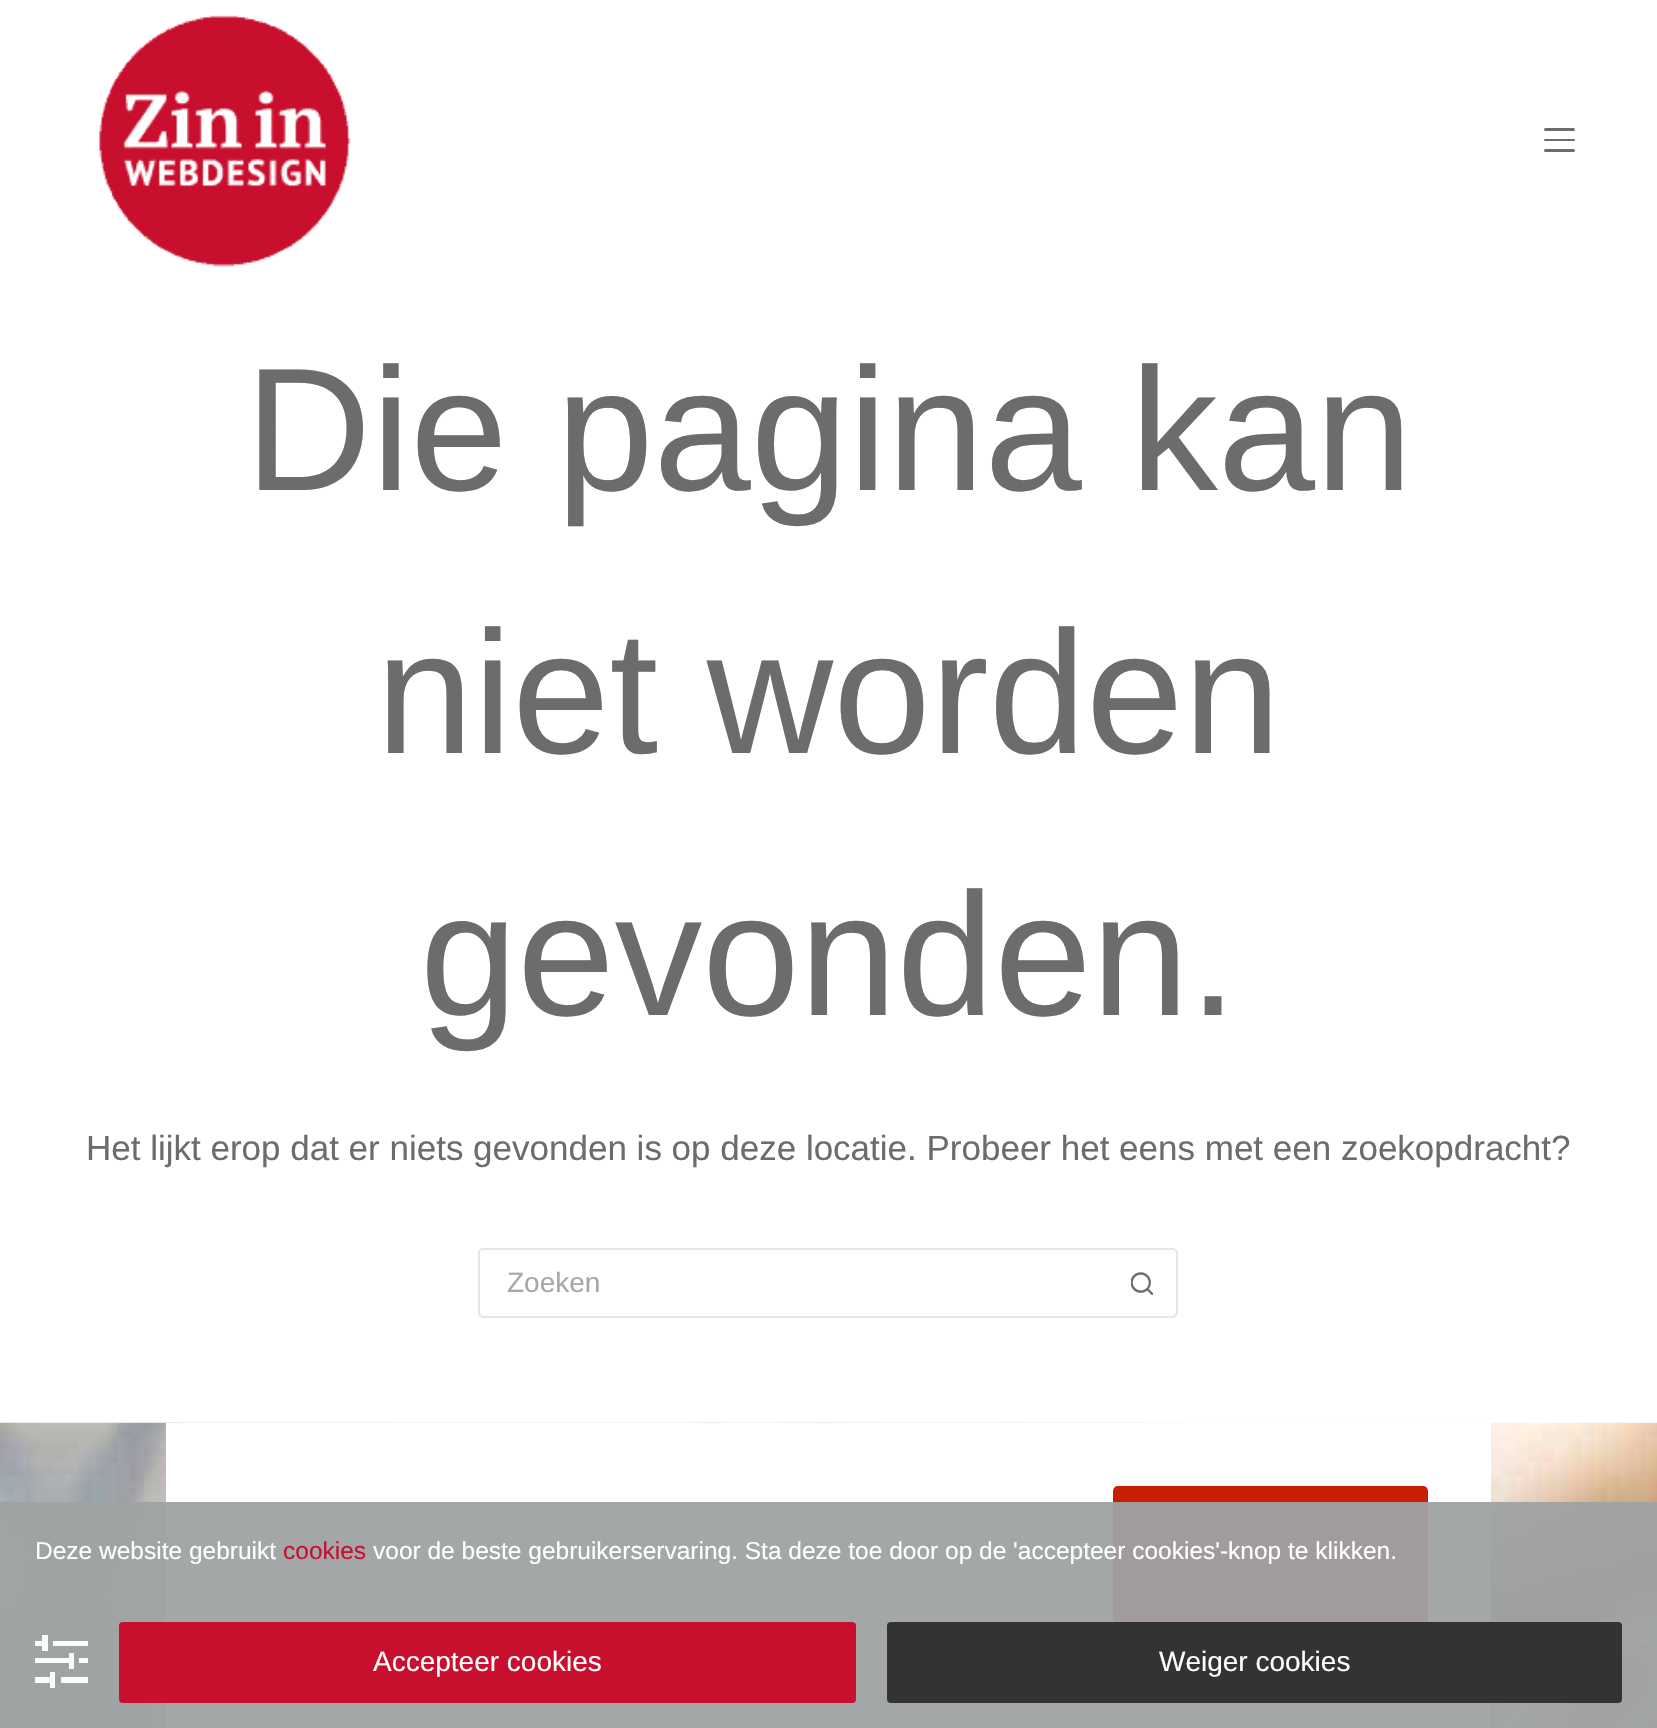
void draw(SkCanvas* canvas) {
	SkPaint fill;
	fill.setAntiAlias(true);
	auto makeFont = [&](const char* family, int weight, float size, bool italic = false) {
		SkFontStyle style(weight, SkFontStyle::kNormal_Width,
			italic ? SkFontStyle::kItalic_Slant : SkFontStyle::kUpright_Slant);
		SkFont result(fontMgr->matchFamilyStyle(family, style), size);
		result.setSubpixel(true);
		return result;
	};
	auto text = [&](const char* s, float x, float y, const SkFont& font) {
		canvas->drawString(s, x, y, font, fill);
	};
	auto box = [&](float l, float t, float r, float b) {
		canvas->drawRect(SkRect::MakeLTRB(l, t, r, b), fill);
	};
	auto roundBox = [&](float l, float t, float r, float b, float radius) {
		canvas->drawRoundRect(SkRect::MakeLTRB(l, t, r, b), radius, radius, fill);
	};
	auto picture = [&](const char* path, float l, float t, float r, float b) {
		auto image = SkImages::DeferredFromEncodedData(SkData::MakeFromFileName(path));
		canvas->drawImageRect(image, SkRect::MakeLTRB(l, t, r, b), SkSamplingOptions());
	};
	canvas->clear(0xFFFFFFFF);
	picture("image0.png", 99, 15, 351, 267);
	fill.setColor(0xFF6C6C6C);
	roundBox(1544, 128, 1575, 131, 1.5f);
	roundBox(1544, 139, 1575, 141, 1);
	roundBox(1544, 149, 1575, 152, 1.5f);
	fill.setColor(0xFFE1E8ED);
	canvas->drawPath(SkPathBuilder(SkPathFillType::kEvenOdd).moveTo(483, 1248).lineTo(1108, 1248).lineTo(1108, 1318).lineTo(483, 1318).cubicTo(480, 1318, 478, 1315, 478, 1312).lineTo(478, 1253).cubicTo(478, 1250, 480, 1248, 483, 1248).close().moveTo(483, 1250).lineTo(1108, 1250).lineTo(1108, 1316).lineTo(483, 1316).cubicTo(481, 1316, 480, 1314, 480, 1312).lineTo(480, 1253).cubicTo(480, 1251, 481, 1250, 483, 1250).close().detach(), fill);
	canvas->drawPath(SkPathBuilder(SkPathFillType::kEvenOdd).moveTo(1108, 1248).lineTo(1172, 1248).cubicTo(1175, 1248, 1178, 1250, 1178, 1253).lineTo(1178, 1312).cubicTo(1178, 1315, 1175, 1318, 1172, 1318).lineTo(1108, 1318).close().moveTo(1108, 1250).lineTo(1172, 1250).cubicTo(1174, 1250, 1176, 1251, 1176, 1253).lineTo(1176, 1312).cubicTo(1176, 1314, 1174, 1316, 1172, 1316).lineTo(1108, 1316).close().detach(), fill);
	picture("image1.png", 1131, 1272, 1153, 1295);
	picture("image2.png", 0, 1422, 1657, 1728);
	fill.setColor(0xFFFFFFFF);
	box(166, 1423, 1491, 1728);
	fill.setColor(0xFFC81E02);
	roundBox(1113, 1486, 1428, 1643, 5);
	fill.setColor(0xF29EA2A2);
	box(0, 1502, 1657, 1728);
	fill.setColor(0xFFFCFCFC);
	box(53, 1641, 88, 1646);
	box(35, 1641, 48, 1646);
	box(42, 1635, 48, 1651);
	box(79, 1658, 88, 1663);
	box(35, 1658, 70, 1663);
	box(69, 1653, 74, 1669);
	box(61, 1677, 88, 1683);
	box(35, 1677, 51, 1683);
	box(50, 1672, 55, 1688);
	fill.setColor(0xFFC8102E);
	roundBox(119, 1622, 856, 1703, 4);
	fill.setColor(0xFF333333);
	roundBox(887, 1622, 1622, 1703, 4);
	auto font1 = makeFont("Liberation Sans", 400, 175);
	fill.setColor(0xFF6C6C6C);
	text("Die pagina kan", 245, 490, font1);
	text("niet worden", 376, 753, font1);
	text("gevonden.", 420, 1015, font1);
	auto font2 = makeFont("Liberation Sans", 400, 35);
	text("Het lijkt erop dat er niets gevonden is op deze locatie. Probeer het eens met een zoekopdracht?", 86, 1160, font2);
	auto font3 = makeFont("Liberation Sans", 400, 28);
	fill.setColor(0xFFA7A7A7);
	text("Zoeken", 507, 1292, font3);
	auto font4 = makeFont("Liberation Sans", 400, 24.5f);
	fill.setColor(0xFFFFFFFF);
	text("Deze website gebruikt", 35, 1559, font4);
	fill.setColor(0xFFC8102E);
	text("cookies", 283, 1559, font4);
	fill.setColor(0xFFFFFFFF);
	text("voor de beste gebruikerservaring. Sta deze toe door op de 'accepteer cookies'-knop te klikken.", 373, 1559, font4);
	text("Accepteer cookies", 373, 1671, font3);
	text("Weiger cookies", 1159, 1671, font3);
}
